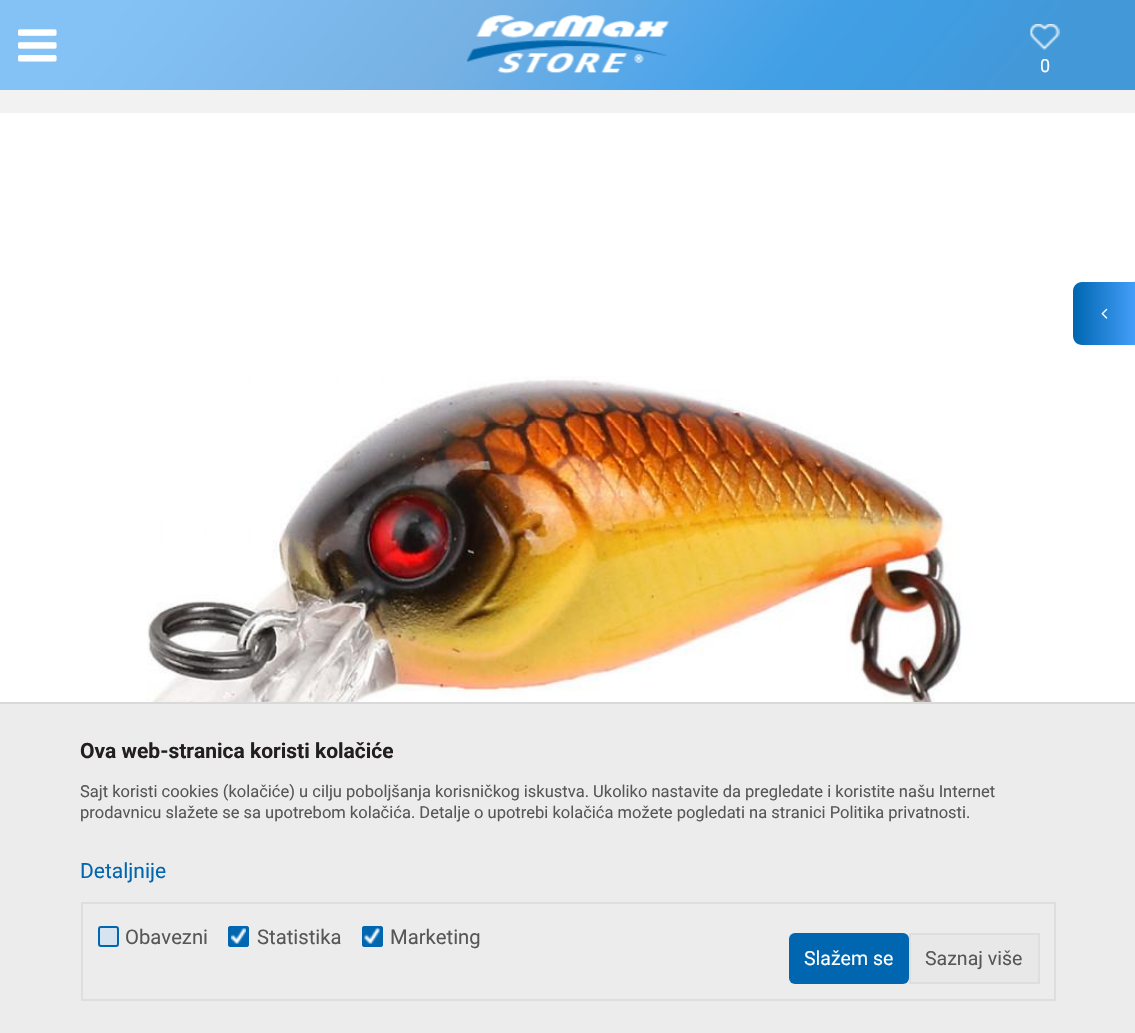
void draw(SkCanvas* canvas) {
	SkPaint fill;
	fill.setAntiAlias(true);
	auto makeFont = [&](const char* family, int weight, float size, bool italic = false) {
		SkFontStyle style(weight, SkFontStyle::kNormal_Width,
			italic ? SkFontStyle::kItalic_Slant : SkFontStyle::kUpright_Slant);
		SkFont result(fontMgr->matchFamilyStyle(family, style), size);
		result.setSubpixel(true);
		return result;
	};
	auto text = [&](const char* s, float x, float y, const SkFont& font) {
		canvas->drawString(s, x, y, font, fill);
	};
	auto box = [&](float l, float t, float r, float b) {
		canvas->drawRect(SkRect::MakeLTRB(l, t, r, b), fill);
	};
	auto roundBox = [&](float l, float t, float r, float b, float radius) {
		canvas->drawRoundRect(SkRect::MakeLTRB(l, t, r, b), radius, radius, fill);
	};
	auto picture = [&](const char* path, float l, float t, float r, float b) {
		auto image = SkImages::DeferredFromEncodedData(SkData::MakeFromFileName(path));
		canvas->drawImageRect(image, SkRect::MakeLTRB(l, t, r, b), SkSamplingOptions());
	};
	canvas->clear(0xFFF2F2F2);
	{
		const SkColor colors[] = {0xFF84C2F6, 0xFF77B1E3, 0xFF54A7E9, 0xFF419FE5, 0xFF409DE2, 0xFF4398D8};
		const float stops[] = {0.1f, 0.41f, 0.58f, 0.7f, 0.79f, 0.89f};
		const SkPoint ends[] = {{212, -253}, {923, 343}};
		fill.setShader(SkGradientShader::MakeLinear(ends, colors, stops, 6, SkTileMode::kClamp));
		fill.setAlpha(255);
	}
	box(0, 0, 1135, 90);
	picture("image0.png", 467, 15, 670, 74);
	picture("image1.png", 18, 29, 57, 62);
	picture("image2.png", 1030, 24, 1060, 50);
	fill.setShader(nullptr);
	fill.setColor(0xFFFFFFFF);
	box(0, 113, 1135, 702);
	picture("image3.png", 117, 376, 1003, 702);
	fill.setColor(0xFFEFEFEF);
	box(1133, 281, 1135, 282);
	{
		const SkColor colors[] = {0xFF0066B0, 0xFF449FFA};
		const float stops[] = {0, 1};
		const SkPoint ends[] = {{1073, 314}, {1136, 314}};
		fill.setShader(SkGradientShader::MakeLinear(ends, colors, stops, 2, SkTileMode::kClamp));
		fill.setAlpha(255);
	}
	canvas->drawPath(SkPathBuilder().moveTo(1082, 282).lineTo(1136, 282).lineTo(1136, 345).lineTo(1082, 345).cubicTo(1077, 345, 1073, 341, 1073, 336).lineTo(1073, 291).cubicTo(1073, 286, 1077, 282, 1082, 282).close().detach(), fill);
	picture("image4.png", 1101, 308, 1108, 319);
	fill.setStyle(SkPaint::kStroke_Style);
	fill.setStrokeWidth(2);
	fill.setShader(nullptr);
	fill.setColor(0xFFD9D9D9);
	canvas->drawRect(SkRect::MakeLTRB(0, 703, 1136, 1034), fill);
	fill.setStyle(SkPaint::kFill_Style);
	fill.setColor(0xFFECECEC);
	box(0, 704, 1135, 1033);
	fill.setStyle(SkPaint::kStroke_Style);
	fill.setColor(0xFFDEDEDE);
	canvas->drawRect(SkRect::MakeLTRB(82, 903, 1055, 1000), fill);
	fill.setStyle(SkPaint::kFill_Style);
	fill.setColor(0xFFD6E3F0);
	canvas->drawRoundRect(SkRect::MakeLTRB(99, 927, 118, 946), 2, 2, fill);
	fill.setStyle(SkPaint::kStroke_Style);
	fill.setColor(0xFF0066B0);
	canvas->drawRoundRect(SkRect::MakeLTRB(99, 927, 118, 946), 2, 2, fill);
	fill.setStyle(SkPaint::kFill_Style);
	roundBox(228, 926, 249, 947, 3);
	picture("image5.png", 231, 928, 246, 944);
	fill.setStyle(SkPaint::kStroke_Style);
	canvas->drawRoundRect(SkRect::MakeLTRB(229, 927, 248, 946), 2, 2, fill);
	fill.setStyle(SkPaint::kFill_Style);
	roundBox(362, 926, 383, 947, 3);
	picture("image6.png", 364, 928, 380, 944);
	fill.setStyle(SkPaint::kStroke_Style);
	canvas->drawRoundRect(SkRect::MakeLTRB(363, 927, 382, 946), 2, 2, fill);
	fill.setStyle(SkPaint::kFill_Style);
	roundBox(789, 933, 909, 984, 6);
	fill.setColor(0xFFE8E8E8);
	canvas->drawRect(SkRect::MakeLTRB(910, 934, 1039, 983), fill);
	fill.setStyle(SkPaint::kStroke_Style);
	fill.setColor(0xFFDEDEDE);
	canvas->drawRect(SkRect::MakeLTRB(910, 934, 1039, 983), fill);
	auto font1 = makeFont("Roboto", 400, 18);
	fill.setStyle(SkPaint::kFill_Style);
	fill.setColor(0xFFFFFFFF);
	text("0", 1040, 72, font1);
	auto font2 = makeFont("Roboto", 700, 21);
	fill.setColor(0xFF231F20);
	text("Ova web-stranica koristi kolačiće", 80, 758, font2);
	auto font3 = makeFont("Roboto", 400, 16.5f);
	fill.setColor(0xFF575757);
	text("Sajt koristi cookies (kolačiće) u cilju poboljšanja korisničkog iskustva. Ukoliko nastavite da pregledate i koristite našu Internet", 80, 797, font3);
	text("prodavnicu slažete se sa upotrebom kolačića. Detalje o upotrebi kolačića možete pogledati na stranici Politika privatnosti.", 80, 818, font3);
	auto font4 = makeFont("Roboto", 400, 21);
	fill.setColor(0xFF0066B0);
	text("Detaljnije", 80, 878, font4);
	auto font5 = makeFont("Roboto", 400, 20.25f);
	fill.setColor(0xFF575757);
	text("Obavezni", 125, 944, font5);
	text("Statistika", 257, 944, font5);
	text("Marketing", 390, 944, font5);
	auto font6 = makeFont("Roboto", 400, 19.5f);
	fill.setColor(0xFFFFFFFF);
	text("Slažem se", 804, 965, font6);
	fill.setColor(0xFF575757);
	text("Saznaj više", 925, 965, font6);
}
